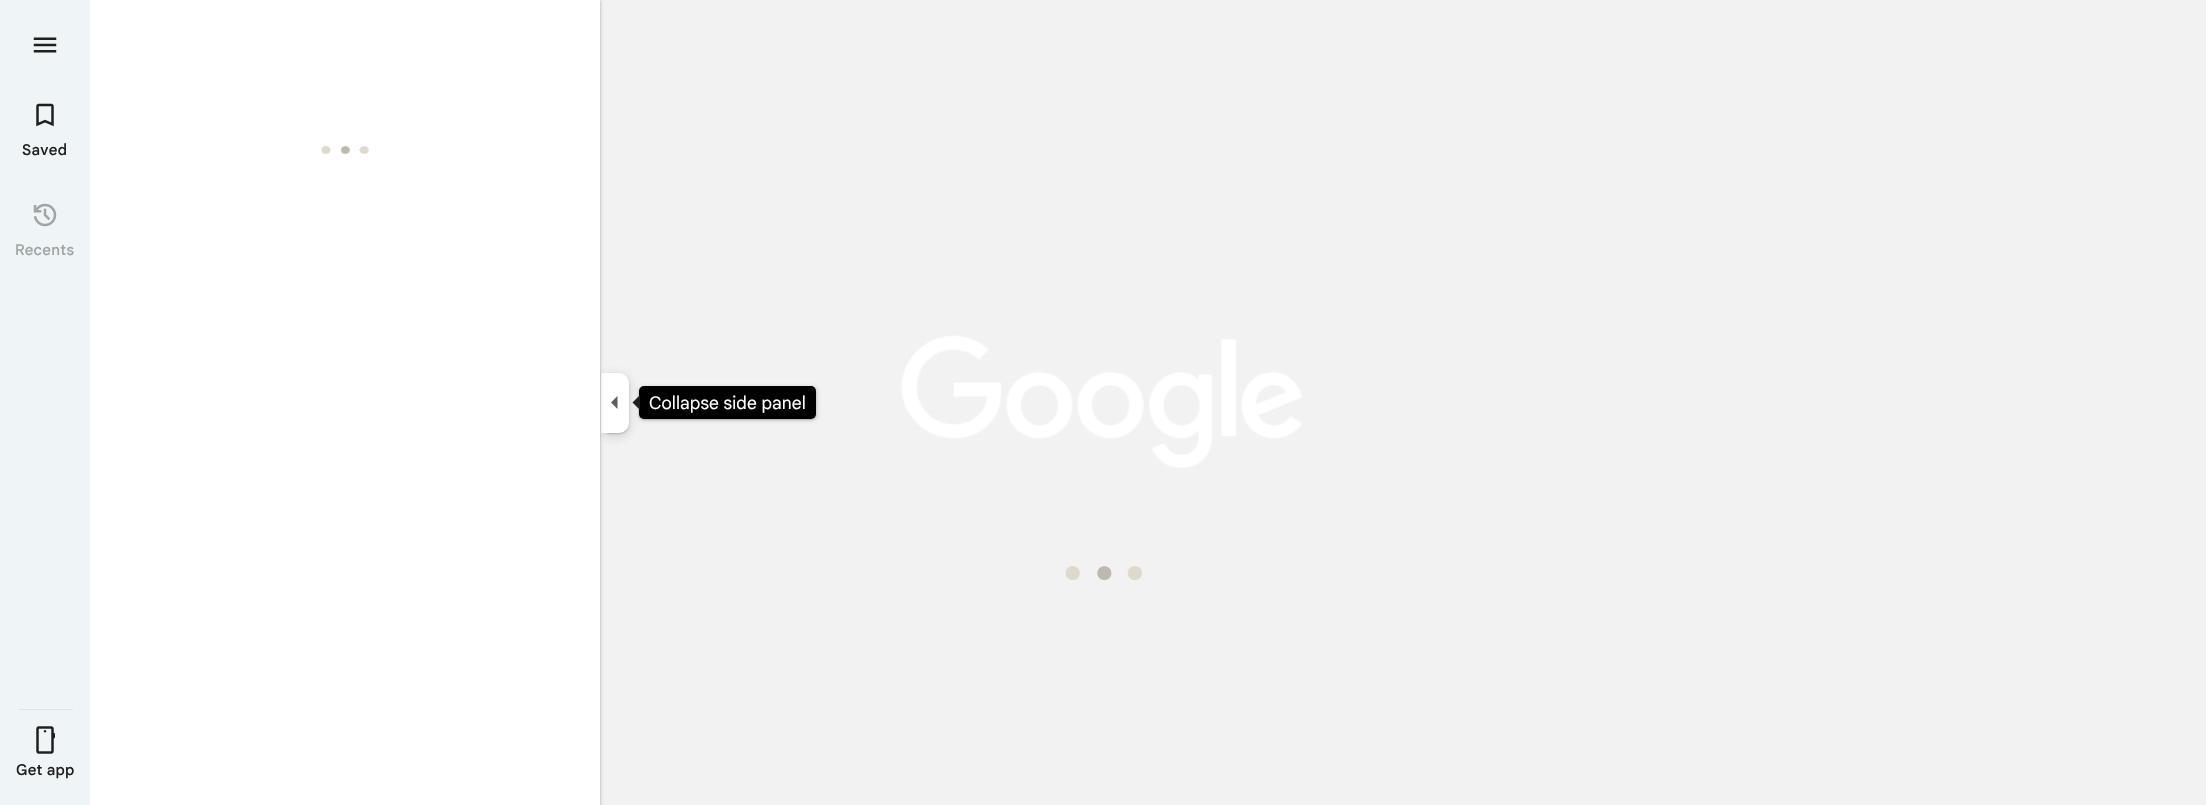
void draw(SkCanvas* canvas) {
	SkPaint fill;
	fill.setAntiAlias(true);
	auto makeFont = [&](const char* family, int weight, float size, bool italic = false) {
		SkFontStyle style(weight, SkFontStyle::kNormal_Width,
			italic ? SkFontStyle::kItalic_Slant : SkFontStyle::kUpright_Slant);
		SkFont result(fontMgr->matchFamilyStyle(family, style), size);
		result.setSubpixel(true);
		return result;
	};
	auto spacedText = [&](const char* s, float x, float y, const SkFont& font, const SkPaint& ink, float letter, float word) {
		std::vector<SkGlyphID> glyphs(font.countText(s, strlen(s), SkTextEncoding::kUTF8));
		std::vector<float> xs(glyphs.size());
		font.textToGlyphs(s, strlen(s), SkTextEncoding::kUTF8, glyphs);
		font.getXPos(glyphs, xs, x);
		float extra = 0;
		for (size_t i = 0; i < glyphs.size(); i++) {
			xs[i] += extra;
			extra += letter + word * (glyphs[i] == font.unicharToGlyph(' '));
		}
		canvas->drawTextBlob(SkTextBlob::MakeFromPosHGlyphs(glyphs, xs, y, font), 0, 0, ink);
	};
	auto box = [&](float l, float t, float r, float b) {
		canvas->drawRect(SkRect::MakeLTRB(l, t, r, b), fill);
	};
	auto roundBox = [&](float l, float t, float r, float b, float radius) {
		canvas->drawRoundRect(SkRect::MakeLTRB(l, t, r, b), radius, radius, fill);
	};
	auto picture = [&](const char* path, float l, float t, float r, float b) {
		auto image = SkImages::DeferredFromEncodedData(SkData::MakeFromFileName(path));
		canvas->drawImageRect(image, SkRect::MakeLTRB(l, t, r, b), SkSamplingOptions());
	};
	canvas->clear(0xFFF2F2F2);
	fill.setColor(0x263C4043);
	fill.setMaskFilter(SkMaskFilter::MakeBlur(kNormal_SkBlurStyle, 4));
	canvas->drawRoundRect(SkRect::MakeLTRB(598, 373, 631, 438), 13, 13, fill);
	fill.setMaskFilter(nullptr);
	fill.setColor(0x4D3C4043);
	fill.setMaskFilter(SkMaskFilter::MakeBlur(kNormal_SkBlurStyle, 1));
	canvas->drawRoundRect(SkRect::MakeLTRB(600, 374, 629, 434), 10, 10, fill);
	fill.setMaskFilter(nullptr);
	fill.setColor(0xFFFFFFFF);
	canvas->drawPath(SkPathBuilder().moveTo(600, 373).lineTo(619, 373).cubicTo(624.5f, 373, 629, 377.5f, 629, 383).lineTo(629, 423).cubicTo(629, 428.5f, 624.5f, 433, 619, 433).lineTo(600, 433).close().detach(), fill);
	fill.setColor(0xFFE3E3E3);
	box(600, 373, 601, 433);
	fill.setColor(0x263C4043);
	fill.setMaskFilter(SkMaskFilter::MakeBlur(kNormal_SkBlurStyle, 2));
	canvas->drawRect(SkRect::MakeLTRB(89, 0, 601, 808), fill);
	fill.setMaskFilter(nullptr);
	fill.setColor(0x4D3C4043);
	fill.setMaskFilter(SkMaskFilter::MakeBlur(kNormal_SkBlurStyle, 1));
	canvas->drawRect(SkRect::MakeLTRB(90, 1, 600, 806), fill);
	fill.setMaskFilter(nullptr);
	fill.setColor(0xFFEFF5F6);
	box(0, 0, 90, 805);
	picture("image0.png", 33, 37, 57, 53);
	picture("image1.png", 36, 103, 54, 127);
	picture("image2.png", 33, 203, 57, 227);
	fill.setColor(0xFFE3E3E3);
	box(18, 709, 73, 710);
	picture("image3.png", 36, 726, 55, 754);
	fill.setColor(0xFFFFFFFF);
	box(90, 0, 600, 805);
	picture("image4.png", 321, 145, 369, 155);
	fill.setColor(0xFF5E5E5E);
	canvas->drawPath(SkPathBuilder().moveTo(617.5f, 409).lineTo(611, 402.5f).lineTo(617.5f, 396).close().detach(), fill);
	fill.setColor(0x263C4043);
	fill.setMaskFilter(SkMaskFilter::MakeBlur(kNormal_SkBlurStyle, 2));
	canvas->drawRoundRect(SkRect::MakeLTRB(638, 386, 818, 421), 6, 6, fill);
	fill.setMaskFilter(nullptr);
	fill.setColor(0x4D3C4043);
	fill.setMaskFilter(SkMaskFilter::MakeBlur(kNormal_SkBlurStyle, 1));
	canvas->drawRoundRect(SkRect::MakeLTRB(639, 388, 816, 420), 5, 5, fill);
	fill.setMaskFilter(nullptr);
	fill.setColor(0xFF000000);
	roundBox(639, 386, 816, 419, 5);
	fill.setColor(0xFF1F1F1F);
	canvas->drawPath(SkPathBuilder().moveTo(640, 395).lineTo(640, 410).lineTo(632.5f, 402.5f).close().detach(), fill);
	picture("image5.png", 901, 335, 1303, 468);
	picture("image6.png", 1065, 566, 1142, 580);
	auto font1 = makeFont("Google Sans", 500, 15);
	spacedText("Saved", 22, 155, font1, fill, 0.25f, 0);
	fill.setColor(0xFFA0A4A4);
	spacedText("Recents", 15, 255, font1, fill, 0.25f, 0);
	fill.setColor(0xFF1F1F1F);
	spacedText("Get app", 16, 775, font1, fill, 0.25f, 0);
	auto font2 = makeFont("Google Sans", 400, 17.5f);
	fill.setColor(0xFFFFFFFF);
	spacedText("Collapse side panel", 649, 409, font2, fill, 0.1f, 0);
}
